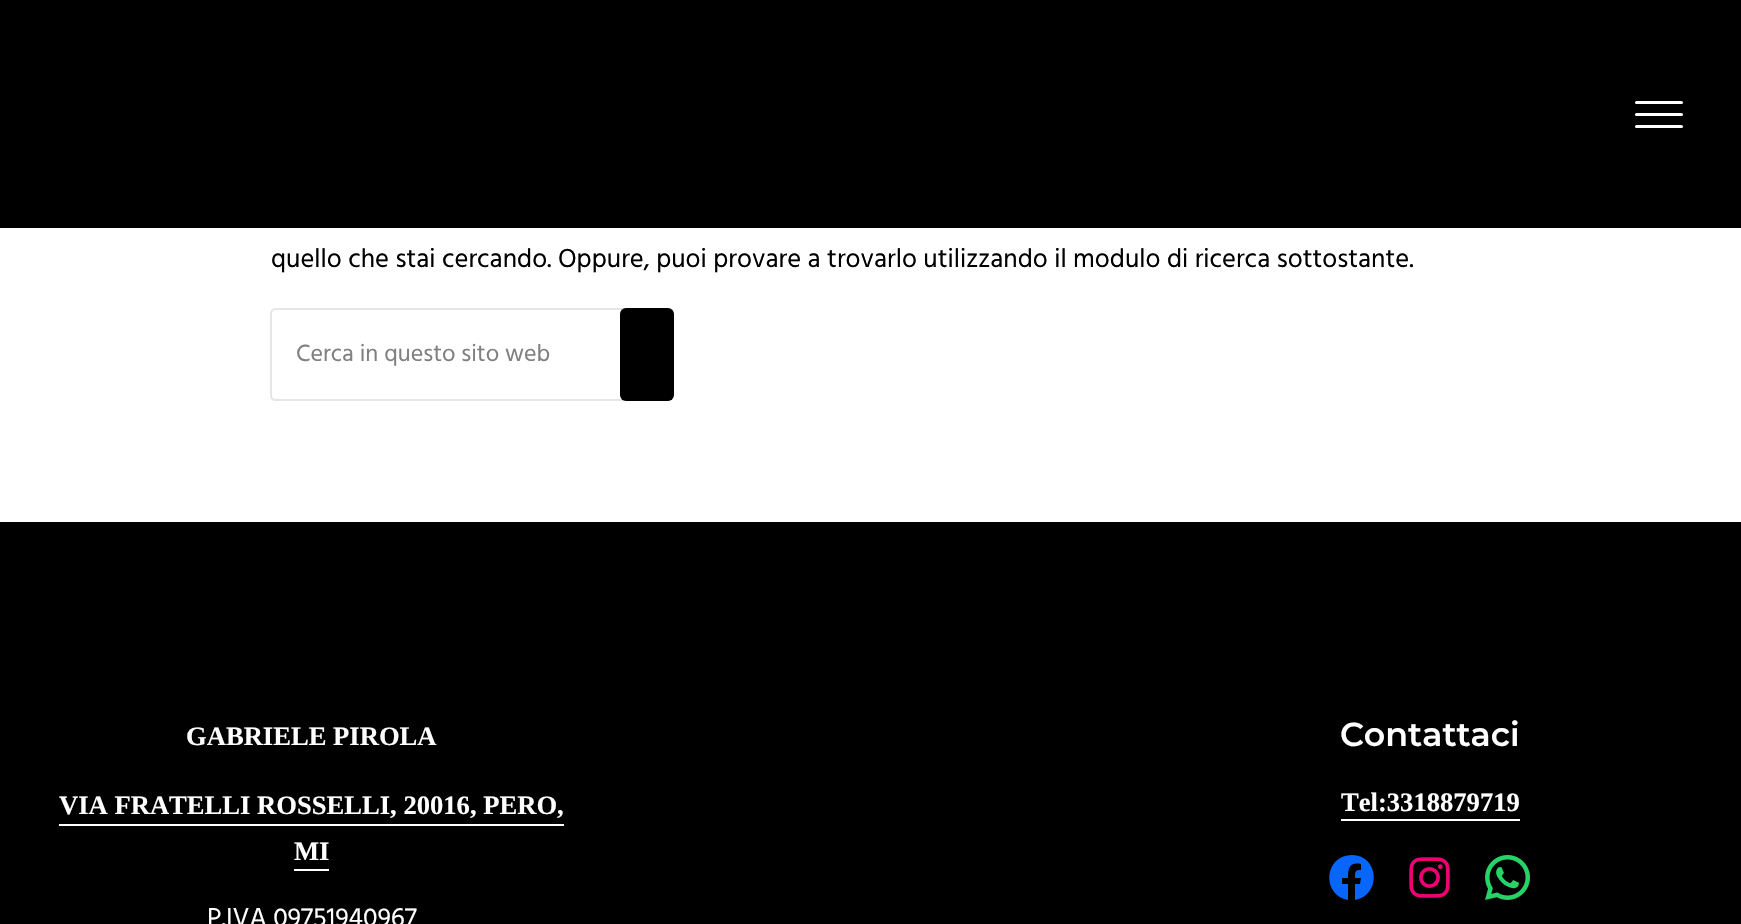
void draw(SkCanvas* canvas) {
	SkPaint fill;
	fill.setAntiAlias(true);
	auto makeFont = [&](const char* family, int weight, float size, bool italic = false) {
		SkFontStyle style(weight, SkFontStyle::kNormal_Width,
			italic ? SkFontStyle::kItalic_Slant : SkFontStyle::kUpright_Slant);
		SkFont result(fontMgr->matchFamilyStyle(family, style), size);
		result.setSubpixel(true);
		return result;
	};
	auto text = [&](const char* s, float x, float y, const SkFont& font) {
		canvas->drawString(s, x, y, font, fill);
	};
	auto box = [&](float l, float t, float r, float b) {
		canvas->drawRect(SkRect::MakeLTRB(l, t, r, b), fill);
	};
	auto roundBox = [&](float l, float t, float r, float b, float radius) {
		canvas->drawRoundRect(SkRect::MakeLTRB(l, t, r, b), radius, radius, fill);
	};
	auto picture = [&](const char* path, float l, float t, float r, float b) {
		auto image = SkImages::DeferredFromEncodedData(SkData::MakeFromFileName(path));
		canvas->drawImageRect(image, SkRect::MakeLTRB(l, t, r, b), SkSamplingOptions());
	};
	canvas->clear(0xFFFFFFFF);
	fill.setColor(0xFF000000);
	box(0, 0, 1741, 228);
	fill.setColor(0xFFFFFFFF);
	roundBox(1635, 113, 1683, 116, 1.5f);
	roundBox(1635, 101, 1683, 104, 1.5f);
	roundBox(1635, 125, 1683, 128, 1.5f);
	fill.setStyle(SkPaint::kStroke_Style);
	fill.setStrokeWidth(2);
	fill.setColor(0xFFE6E6E6);
	canvas->drawPath(SkPathBuilder().moveTo(276, 309).lineTo(655, 309).lineTo(655, 400).lineTo(276, 400).cubicTo(273, 400, 271, 398, 271, 395).lineTo(271, 314).cubicTo(271, 311, 273, 309, 276, 309).close().detach(), fill);
	fill.setStyle(SkPaint::kFill_Style);
	fill.setColor(0xFF000000);
	roundBox(620, 308, 674, 401, 6);
	box(0, 522, 1741, 924);
	fill.setColor(0xFFFFFFFF);
	box(59, 824, 564, 826);
	box(294, 869, 329, 871);
	box(1341, 819, 1520, 821);
	fill.setColor(0xFF0866FF);
	canvas->drawPath(SkPathBuilder().moveTo(1352, 855).cubicTo(1324, 855, 1321, 895, 1348, 900).lineTo(1348, 884).lineTo(1342, 884).lineTo(1342, 878).lineTo(1348, 878).cubicTo(1348, 867, 1350, 862, 1361, 864).lineTo(1361, 870).cubicTo(1355, 870, 1355, 871, 1355, 878).lineTo(1361, 878).lineTo(1360, 884).lineTo(1355, 884).lineTo(1355, 900).cubicTo(1382, 895, 1379, 855, 1352, 855).close().detach(), fill);
	picture("image0.png", 1409, 857, 1450, 898);
	picture("image1.png", 1485, 855, 1530, 900);
	auto font1 = makeFont("Hind", 400, 26.6f);
	fill.setColor(0xFF000000);
	text("quello che stai cercando. Oppure, puoi provare a trovarlo utilizzando il modulo di ricerca sottostante.", 271, 267, font1);
	auto font2 = makeFont("Hind", 400, 24);
	fill.setColor(0xFF808080);
	text("Cerca in questo sito web", 296, 361, font2);
	auto font3 = makeFont("Liberation Serif", 700, 26.6f);
	fill.setColor(0xFFFFFFFF);
	text("GABRIELE PIROLA", 186, 745, font3);
	text("VIA FRATELLI ROSSELLI, 20016, PERO,", 59, 814, font3);
	text("MI", 294, 860, font3);
	text("P.IVA 09751940967", 207, 926, font1);
	auto font4 = makeFont("Montserrat", 100, 33.25f);
	text("Contattaci", 1340, 746, font4);
	text("Tel:3318879719", 1341, 811, font3);
}
